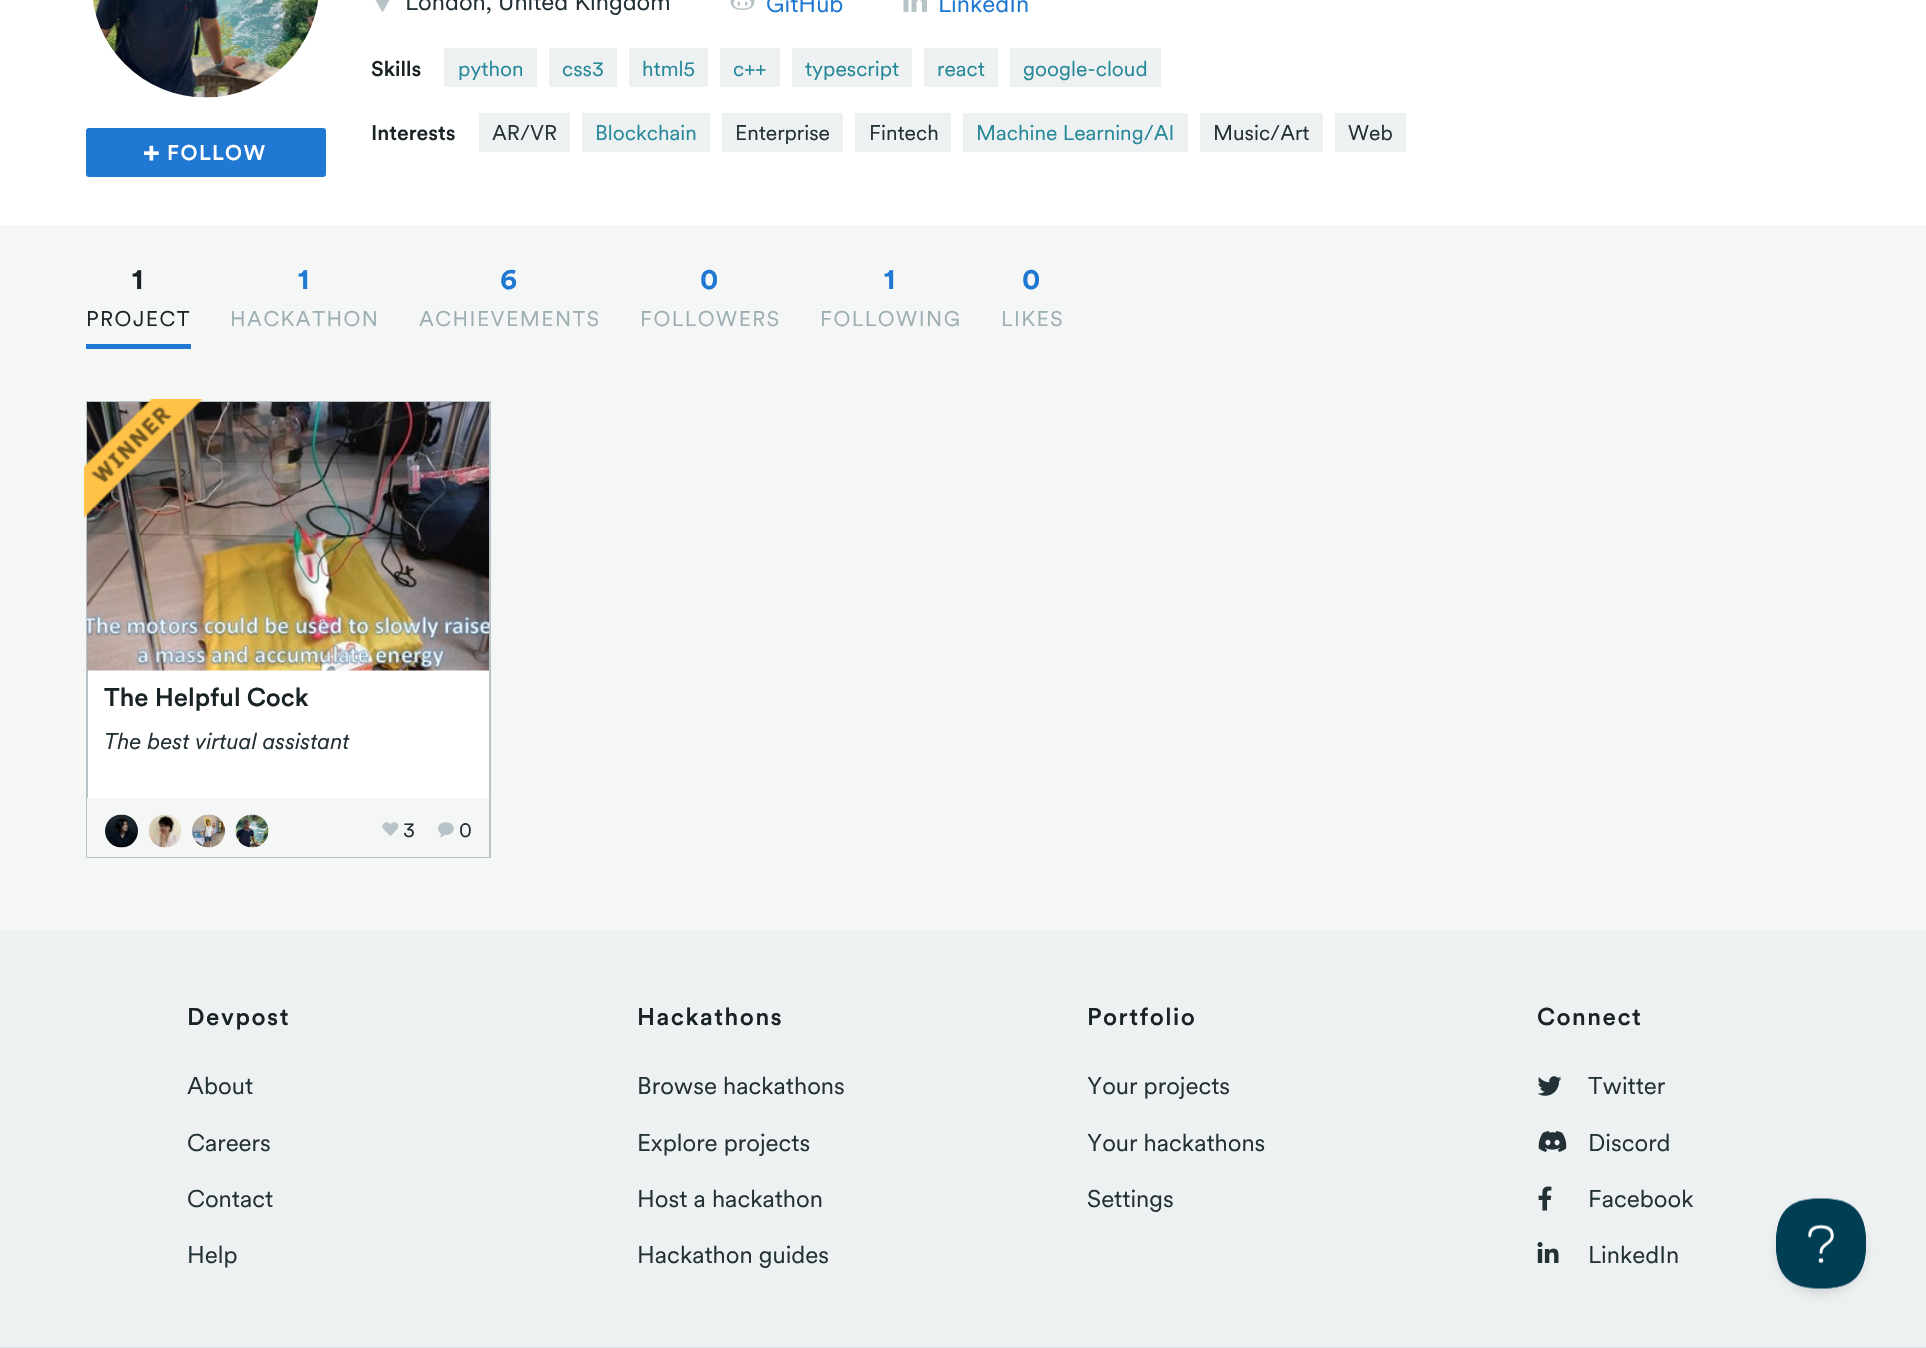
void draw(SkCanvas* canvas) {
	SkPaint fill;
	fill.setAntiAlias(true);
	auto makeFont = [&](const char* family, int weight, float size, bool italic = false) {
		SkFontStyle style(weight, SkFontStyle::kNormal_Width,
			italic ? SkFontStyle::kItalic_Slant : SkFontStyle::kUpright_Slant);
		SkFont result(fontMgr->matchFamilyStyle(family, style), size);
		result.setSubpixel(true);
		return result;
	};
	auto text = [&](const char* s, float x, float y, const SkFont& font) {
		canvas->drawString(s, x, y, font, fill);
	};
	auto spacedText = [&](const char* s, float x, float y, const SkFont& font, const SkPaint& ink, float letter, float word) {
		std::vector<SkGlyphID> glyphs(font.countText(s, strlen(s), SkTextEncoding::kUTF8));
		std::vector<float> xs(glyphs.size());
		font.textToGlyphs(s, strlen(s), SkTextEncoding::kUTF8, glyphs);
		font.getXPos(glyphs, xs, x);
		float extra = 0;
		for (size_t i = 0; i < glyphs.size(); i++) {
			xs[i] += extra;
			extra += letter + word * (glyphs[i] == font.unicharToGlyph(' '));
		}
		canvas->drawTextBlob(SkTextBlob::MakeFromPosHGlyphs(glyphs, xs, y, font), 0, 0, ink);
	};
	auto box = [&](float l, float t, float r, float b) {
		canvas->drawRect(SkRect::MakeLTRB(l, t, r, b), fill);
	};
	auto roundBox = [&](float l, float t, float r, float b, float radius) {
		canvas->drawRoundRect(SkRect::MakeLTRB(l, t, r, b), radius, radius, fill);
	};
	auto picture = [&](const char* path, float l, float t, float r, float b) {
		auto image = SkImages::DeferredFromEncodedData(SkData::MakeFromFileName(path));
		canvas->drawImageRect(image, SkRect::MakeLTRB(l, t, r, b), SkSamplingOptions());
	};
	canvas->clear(0xFFFFFFFF);
	picture("image0.png", 375, 0, 390, 12);
	picture("image1.png", 730, 0, 755, 10);
	picture("image2.png", 903, 0, 927, 12);
	fill.setColor(0xFFEDF1F2);
	box(444, 48, 537, 87);
	box(549, 48, 617, 87);
	box(629, 48, 708, 87);
	box(720, 48, 780, 87);
	box(792, 48, 912, 87);
	box(924, 48, 998, 87);
	box(1010, 48, 1161, 87);
	box(479, 113, 570, 152);
	box(582, 113, 710, 152);
	box(722, 113, 843, 152);
	box(855, 113, 951, 152);
	box(963, 113, 1188, 152);
	box(1200, 113, 1323, 152);
	box(1335, 113, 1406, 152);
	picture("image3.png", 92, 0, 319, 98);
	fill.setColor(0xFF1F78D1);
	roundBox(86, 128, 326, 177, 3);
	picture("image4.png", 144, 145, 159, 161);
	fill.setColor(0xFFF5F7F7);
	box(0, 225, 1926, 930);
	fill.setColor(0xFF1F78D1);
	box(86, 344, 191, 349);
	fill.setColor(0xFFFFFFFF);
	box(88, 670, 489, 798);
	fill.setStyle(SkPaint::kStroke_Style);
	fill.setStrokeWidth(2);
	fill.setColor(0xFFB7C3C7);
	canvas->drawRect(SkRect::MakeLTRB(87, 402, 490, 857), fill);
	picture("image6.png", 87, 402, 489, 671);
	picture("image5.png", 84, 399, 203, 518);
	fill.setStyle(SkPaint::kFill_Style);
	fill.setColor(0xFFF5F7F7);
	box(87, 798, 489, 857);
	picture("image7.png", 105, 814, 138, 848);
	picture("image8.png", 148, 814, 182, 848);
	picture("image9.png", 192, 814, 225, 848);
	picture("image10.png", 235, 814, 269, 848);
	picture("image11.png", 382, 822, 399, 836);
	picture("image12.png", 438, 822, 454, 837);
	fill.setColor(0xFFEDF1F2);
	box(0, 930, 1926, 1347);
	picture("image13.png", 1537, 1076, 1562, 1096);
	picture("image14.png", 1538, 1131, 1567, 1152);
	picture("image15.png", 1538, 1186, 1552, 1211);
	picture("image16.png", 1537, 1242, 1559, 1263);
	fill.setColor(0xFFDCE6E9);
	box(0, 1347, 1926, 1348);
	fill.setColor(0x1A000000);
	fill.setMaskFilter(SkMaskFilter::MakeBlur(kNormal_SkBlurStyle, 5));
	canvas->drawRoundRect(SkRect::MakeLTRB(1776, 1205, 1866, 1295), 45, 45, fill);
	fill.setMaskFilter(nullptr);
	picture("image17.png", 1776, 1198, 1866, 1289);
	auto font1 = makeFont("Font", 400, 24);
	fill.setColor(0xFF233136);
	text("London, United Kingdom", 405, 10, font1);
	fill.setColor(0xFF1F78D1);
	text("GitHub", 766, 12, font1);
	text("LinkedIn", 938, 12, font1);
	auto font2 = makeFont("Font", 500, 21);
	fill.setColor(0xFF192325);
	text("Skills", 371, 76, font2);
	auto font3 = makeFont("Font", 400, 21);
	fill.setColor(0xFF268899);
	text("python", 458, 76, font3);
	text("css3", 562, 76, font3);
	text("html5", 642, 76, font3);
	text("c++", 733, 76, font3);
	text("typescript", 805, 76, font3);
	text("react", 937, 76, font3);
	text("google-cloud", 1023, 76, font3);
	fill.setColor(0xFF192325);
	text("Interests", 371, 140, font2);
	fill.setColor(0xFF233136);
	text("AR/VR", 492, 140, font3);
	fill.setColor(0xFF268899);
	text("Blockchain", 595, 140, font3);
	fill.setColor(0xFF233136);
	text("Enterprise", 735, 140, font3);
	text("Fintech", 869, 140, font3);
	fill.setColor(0xFF268899);
	text("Machine Learning/AI", 976, 140, font3);
	fill.setColor(0xFF233136);
	text("Music/Art", 1213, 140, font3);
	text("Web", 1348, 140, font3);
	fill.setColor(0xFFFFFFFF);
	spacedText("FOLLOW", 167, 160, font2, fill, 1.5f, 0);
	auto font4 = makeFont("Font", 700, 29);
	fill.setColor(0xFF192325);
	spacedText("1", 132, 289, font4, fill, 1.5f, 0);
	spacedText("PROJECT", 86, 326, font3, fill, 1.5f, 0);
	fill.setColor(0xFF1F78D1);
	spacedText("1", 298, 289, font4, fill, 1.5f, 0);
	fill.setColor(0xFF9CAEB2);
	spacedText("HACKATHON", 230, 326, font3, fill, 1.5f, 0);
	fill.setColor(0xFF1F78D1);
	spacedText("6", 500, 289, font4, fill, 1.5f, 0);
	fill.setColor(0xFF9CAEB2);
	spacedText("ACHIEVEMENTS", 419, 326, font3, fill, 1.5f, 0);
	fill.setColor(0xFF1F78D1);
	spacedText("0", 700, 289, font4, fill, 1.5f, 0);
	fill.setColor(0xFF9CAEB2);
	spacedText("FOLLOWERS", 640, 326, font3, fill, 1.5f, 0);
	fill.setColor(0xFF1F78D1);
	spacedText("1", 884, 289, font4, fill, 1.5f, 0);
	fill.setColor(0xFF9CAEB2);
	spacedText("FOLLOWING", 820, 326, font3, fill, 1.5f, 0);
	fill.setColor(0xFF1F78D1);
	spacedText("0", 1022, 289, font4, fill, 1.5f, 0);
	fill.setColor(0xFF9CAEB2);
	spacedText("LIKES", 1001, 326, font3, fill, 1.5f, 0);
	auto font5 = makeFont("Font", 500, 25.5f);
	fill.setColor(0xFF192325);
	text("The Helpful Cock", 104, 706, font5);
	auto font6 = makeFont("Font", 400, 22.5f, true);
	fill.setColor(0xFF233136);
	text("The best virtual assistant", 104, 749, font6);
	text("3", 403, 837, font3);
	text("0", 459, 837, font3);
	auto font7 = makeFont("Font", 500, 24);
	fill.setColor(0xFF192325);
	spacedText("Devpost", 187, 1025, font7, fill, 1.5f, 0);
	fill.setColor(0xFF233136);
	text("About", 187, 1094, font1);
	text("Careers", 187, 1151, font1);
	text("Contact", 187, 1207, font1);
	text("Help", 187, 1263, font1);
	fill.setColor(0xFF192325);
	spacedText("Hackathons", 637, 1025, font7, fill, 1.5f, 0);
	fill.setColor(0xFF233136);
	text("Browse hackathons", 637, 1094, font1);
	text("Explore projects", 637, 1151, font1);
	text("Host a hackathon", 637, 1207, font1);
	text("Hackathon guides", 637, 1263, font1);
	fill.setColor(0xFF192325);
	spacedText("Portfolio", 1087, 1025, font7, fill, 1.5f, 0);
	fill.setColor(0xFF233136);
	text("Your projects", 1087, 1094, font1);
	text("Your hackathons", 1087, 1151, font1);
	text("Settings", 1087, 1207, font1);
	fill.setColor(0xFF192325);
	spacedText("Connect", 1537, 1025, font7, fill, 1.5f, 0);
	fill.setColor(0xFF233136);
	text("Twitter", 1588, 1094, font1);
	text("Discord", 1588, 1151, font1);
	text("Facebook", 1588, 1207, font1);
	text("LinkedIn", 1588, 1263, font1);
}
